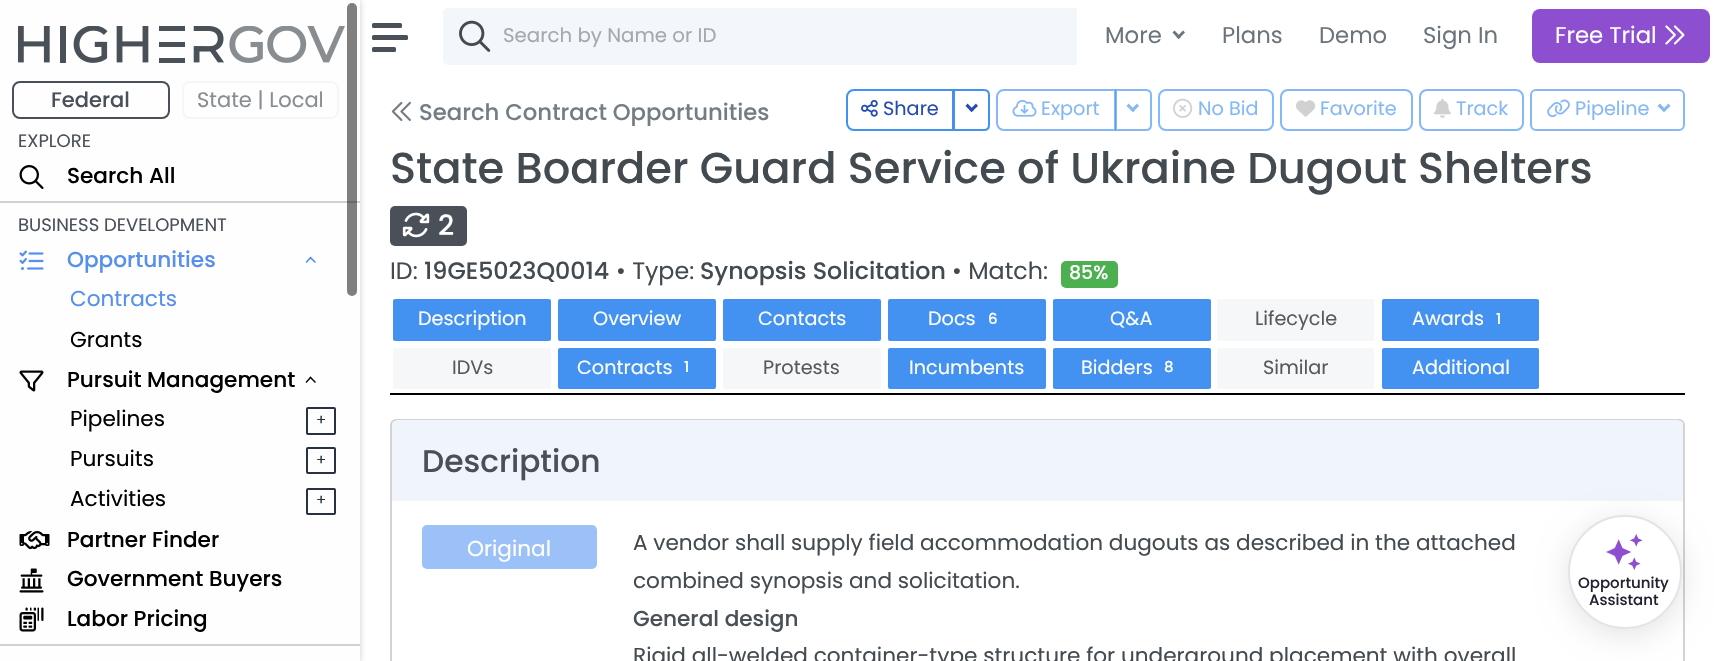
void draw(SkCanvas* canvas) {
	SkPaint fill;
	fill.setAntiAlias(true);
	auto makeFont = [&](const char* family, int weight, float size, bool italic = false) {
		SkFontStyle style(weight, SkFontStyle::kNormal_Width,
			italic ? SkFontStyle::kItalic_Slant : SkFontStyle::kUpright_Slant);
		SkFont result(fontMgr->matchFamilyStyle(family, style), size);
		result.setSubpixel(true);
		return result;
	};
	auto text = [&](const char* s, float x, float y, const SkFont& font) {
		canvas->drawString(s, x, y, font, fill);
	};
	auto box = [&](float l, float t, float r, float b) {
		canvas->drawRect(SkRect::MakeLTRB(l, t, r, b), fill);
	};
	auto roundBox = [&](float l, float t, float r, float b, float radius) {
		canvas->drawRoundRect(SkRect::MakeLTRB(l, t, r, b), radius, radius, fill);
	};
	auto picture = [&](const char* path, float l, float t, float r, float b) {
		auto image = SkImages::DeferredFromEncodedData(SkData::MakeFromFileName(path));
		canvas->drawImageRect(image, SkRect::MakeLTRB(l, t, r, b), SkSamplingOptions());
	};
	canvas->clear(0xFFFFFFFF);
	fill.setColor(0x40293042);
	fill.setMaskFilter(SkMaskFilter::MakeBlur(kNormal_SkBlurStyle, 3));
	canvas->drawRect(SkRect::MakeLTRB(0, 0, 360, 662), fill);
	fill.setMaskFilter(nullptr);
	fill.setColor(0xFFFEFEFE);
	box(0, 0, 360, 661);
	picture("image0.png", 18, 26, 345, 63);
	fill.setStyle(SkPaint::kStroke_Style);
	fill.setStrokeWidth(2);
	fill.setColor(0xFF495057);
	canvas->drawRoundRect(SkRect::MakeLTRB(13, 82, 169, 118), 7, 7, fill);
	fill.setColor(0xFFF4F6F9);
	canvas->drawRoundRect(SkRect::MakeLTRB(183, 82, 338, 118), 7, 7, fill);
	picture("image1.png", 19, 165, 44, 189);
	fill.setStyle(SkPaint::kFill_Style);
	fill.setColor(0xFFCFD1D3);
	box(0, 201, 360, 203);
	picture("image2.png", 19, 250, 44, 270);
	fill.setColor(0xFF568FED);
	canvas->drawPath(SkPathBuilder().moveTo(306.5f, 263).lineTo(305.5f, 262).lineTo(310.5f, 256.5f).lineTo(311.5f, 258).close().detach(), fill);
	canvas->drawPath(SkPathBuilder().moveTo(315, 263).lineTo(309.5f, 258).lineTo(310.5f, 256.5f).lineTo(316, 262).close().detach(), fill);
	picture("image3.png", 19, 370, 44, 392);
	fill.setColor(0xFF000000);
	canvas->drawPath(SkPathBuilder().moveTo(306.5f, 383).lineTo(305.5f, 382).lineTo(310.5f, 376.5f).lineTo(311.5f, 377.5f).close().detach(), fill);
	canvas->drawPath(SkPathBuilder().moveTo(315, 383).lineTo(309.5f, 377.5f).lineTo(310.5f, 376.5f).lineTo(316, 382).close().detach(), fill);
	fill.setStyle(SkPaint::kStroke_Style);
	fill.setColor(0xFF293042);
	canvas->drawRoundRect(SkRect::MakeLTRB(307, 408, 335, 434), 1, 1, fill);
	canvas->drawRoundRect(SkRect::MakeLTRB(307, 448, 335, 473), 1, 1, fill);
	canvas->drawRoundRect(SkRect::MakeLTRB(307, 489, 335, 514), 1, 1, fill);
	picture("image4.png", 19, 531, 50, 550);
	picture("image5.png", 19, 568, 44, 593);
	picture("image6.png", 19, 607, 44, 632);
	fill.setStyle(SkPaint::kFill_Style);
	fill.setColor(0xFFCFD1D3);
	box(0, 644, 360, 646);
	fill.setColor(0x80000000);
	roundBox(347, 3, 357, 296, 5);
	fill.setColor(0xFF495057);
	roundBox(372, 35, 408, 40, 1.5f);
	roundBox(372, 23, 402, 28, 1.5f);
	roundBox(372, 47, 396, 52, 1.5f);
	fill.setColor(0xFFF3F6FB);
	roundBox(443, 8, 1343, 65, 5);
	picture("image7.png", 459, 20, 491, 52);
	fill.setColor(0xFFFFFFFF);
	box(1077, 8, 1343, 65);
	fill.setColor(0xFF6C757D);
	canvas->drawPath(SkPathBuilder().moveTo(1183, 30.5f).lineTo(1185, 32.5f).lineTo(1178.5f, 39).lineTo(1176.5f, 37).close().detach(), fill);
	canvas->drawPath(SkPathBuilder().moveTo(1174.5f, 30.5f).lineTo(1181, 37).lineTo(1178.5f, 39).lineTo(1172.5f, 32.5f).close().detach(), fill);
	fill.setColor(0xFF8D4FCF);
	roundBox(1532, 9, 1710, 63, 8);
	picture("image8.png", 1665, 25, 1685, 45);
	picture("image9.png", 391, 101, 411, 121);
	fill.setStyle(SkPaint::kStroke_Style);
	fill.setColor(0xFF4392F1);
	canvas->drawPath(SkPathBuilder().moveTo(854, 90).lineTo(953, 90).lineTo(953, 130).lineTo(854, 130).cubicTo(850, 130, 847, 127, 847, 123).lineTo(847, 97).cubicTo(847, 93, 850, 90, 854, 90).close().detach(), fill);
	picture("image10.png", 861, 99, 878, 117);
	canvas->drawPath(SkPathBuilder().moveTo(954, 90).lineTo(984, 90).cubicTo(987, 90, 989, 92, 989, 95).lineTo(989, 125).cubicTo(989, 128, 987, 130, 984, 130).lineTo(954, 130).close().detach(), fill);
	fill.setStyle(SkPaint::kFill_Style);
	fill.setColor(0xFF244CB1);
	canvas->drawPath(SkPathBuilder().moveTo(976, 103.5f).lineTo(978, 106).lineTo(971.5f, 112).lineTo(969.5f, 110).close().detach(), fill);
	canvas->drawPath(SkPathBuilder().moveTo(967.5f, 103.5f).lineTo(974, 110).lineTo(971.5f, 112).lineTo(965.5f, 106).close().detach(), fill);
	fill.setStyle(SkPaint::kStroke_Style);
	fill.setColor(0xFF85B8F6);
	canvas->drawPath(SkPathBuilder().moveTo(1004, 90).lineTo(1115, 90).lineTo(1115, 130).lineTo(1004, 130).cubicTo(1000, 130, 997, 127, 997, 123).lineTo(997, 97).cubicTo(997, 93, 1000, 90, 1004, 90).close().detach(), fill);
	picture("image11.png", 1012, 99, 1037, 117);
	fill.setColor(0xA64392F1);
	canvas->drawPath(SkPathBuilder().moveTo(1116, 90).lineTo(1146, 90).cubicTo(1149, 90, 1151, 92, 1151, 95).lineTo(1151, 125).cubicTo(1151, 128, 1149, 130, 1146, 130).lineTo(1116, 130).close().detach(), fill);
	fill.setStyle(SkPaint::kFill_Style);
	fill.setColor(0xFF85B8F6);
	canvas->drawPath(SkPathBuilder().moveTo(1137, 103.5f).lineTo(1139, 106).lineTo(1133, 112).lineTo(1130.5f, 110).close().detach(), fill);
	canvas->drawPath(SkPathBuilder().moveTo(1128.5f, 103.5f).lineTo(1135, 110).lineTo(1133, 112).lineTo(1126.5f, 106).close().detach(), fill);
	fill.setStyle(SkPaint::kStroke_Style);
	canvas->drawRoundRect(SkRect::MakeLTRB(1159, 90, 1273, 130), 7, 7, fill);
	picture("image12.png", 1173, 98, 1193, 118);
	canvas->drawRoundRect(SkRect::MakeLTRB(1281, 90, 1412, 130), 7, 7, fill);
	picture("image13.png", 1296, 100, 1316, 117);
	canvas->drawRoundRect(SkRect::MakeLTRB(1420, 90, 1523, 130), 7, 7, fill);
	picture("image14.png", 1434, 98, 1451, 118);
	canvas->drawRoundRect(SkRect::MakeLTRB(1531, 90, 1684, 130), 5, 5, fill);
	picture("image15.png", 1547, 99, 1570, 118);
	fill.setStyle(SkPaint::kFill_Style);
	canvas->drawPath(SkPathBuilder().moveTo(1668.5f, 103.5f).lineTo(1670.5f, 106).lineTo(1664, 112).lineTo(1662, 110).close().detach(), fill);
	canvas->drawPath(SkPathBuilder().moveTo(1660, 103.5f).lineTo(1666, 110).lineTo(1664, 112).lineTo(1657.5f, 106).close().detach(), fill);
	fill.setColor(0xFF495057);
	roundBox(390, 206, 467, 246, 5);
	picture("image16.png", 402, 212, 430, 238);
	fill.setColor(0xFF4CAF50);
	roundBox(1061, 261, 1118, 288, 5);
	fill.setColor(0xFF000000);
	box(390, 393, 1685, 395);
	fill.setColor(0xFF4392F1);
	canvas->drawRoundRect(SkRect::MakeLTRB(394, 300, 550, 340), 1, 1, fill);
	fill.setStyle(SkPaint::kStroke_Style);
	canvas->drawRoundRect(SkRect::MakeLTRB(394, 300, 550, 340), 1, 1, fill);
	fill.setStyle(SkPaint::kFill_Style);
	canvas->drawRoundRect(SkRect::MakeLTRB(559, 300, 715, 340), 1, 1, fill);
	fill.setStyle(SkPaint::kStroke_Style);
	canvas->drawRoundRect(SkRect::MakeLTRB(559, 300, 715, 340), 1, 1, fill);
	fill.setStyle(SkPaint::kFill_Style);
	canvas->drawRoundRect(SkRect::MakeLTRB(724, 300, 880, 340), 1, 1, fill);
	fill.setStyle(SkPaint::kStroke_Style);
	canvas->drawRoundRect(SkRect::MakeLTRB(724, 300, 880, 340), 1, 1, fill);
	fill.setStyle(SkPaint::kFill_Style);
	canvas->drawRoundRect(SkRect::MakeLTRB(889, 300, 1045, 340), 1, 1, fill);
	fill.setStyle(SkPaint::kStroke_Style);
	canvas->drawRoundRect(SkRect::MakeLTRB(889, 300, 1045, 340), 1, 1, fill);
	fill.setStyle(SkPaint::kFill_Style);
	canvas->drawRoundRect(SkRect::MakeLTRB(1054, 300, 1210, 340), 1, 1, fill);
	fill.setStyle(SkPaint::kStroke_Style);
	canvas->drawRoundRect(SkRect::MakeLTRB(1054, 300, 1210, 340), 1, 1, fill);
	fill.setStyle(SkPaint::kFill_Style);
	fill.setColor(0xFFF5F7F9);
	roundBox(1217, 299, 1374, 341, 2);
	fill.setColor(0xFF4392F1);
	canvas->drawRoundRect(SkRect::MakeLTRB(1383, 300, 1538, 340), 1, 1, fill);
	fill.setStyle(SkPaint::kStroke_Style);
	canvas->drawRoundRect(SkRect::MakeLTRB(1383, 300, 1538, 340), 1, 1, fill);
	fill.setStyle(SkPaint::kFill_Style);
	fill.setColor(0xFFF5F7F9);
	roundBox(393, 348, 551, 389, 2);
	fill.setColor(0xFF4392F1);
	canvas->drawRoundRect(SkRect::MakeLTRB(559, 349, 715, 388), 1, 1, fill);
	fill.setStyle(SkPaint::kStroke_Style);
	canvas->drawRoundRect(SkRect::MakeLTRB(559, 349, 715, 388), 1, 1, fill);
	fill.setStyle(SkPaint::kFill_Style);
	fill.setColor(0xFFF5F7F9);
	roundBox(723, 348, 881, 389, 2);
	fill.setColor(0xFF4392F1);
	canvas->drawRoundRect(SkRect::MakeLTRB(889, 349, 1045, 388), 1, 1, fill);
	fill.setStyle(SkPaint::kStroke_Style);
	canvas->drawRoundRect(SkRect::MakeLTRB(889, 349, 1045, 388), 1, 1, fill);
	fill.setStyle(SkPaint::kFill_Style);
	canvas->drawRoundRect(SkRect::MakeLTRB(1054, 349, 1210, 388), 1, 1, fill);
	fill.setStyle(SkPaint::kStroke_Style);
	canvas->drawRoundRect(SkRect::MakeLTRB(1054, 349, 1210, 388), 1, 1, fill);
	fill.setStyle(SkPaint::kFill_Style);
	fill.setColor(0xFFF5F7F9);
	roundBox(1217, 348, 1374, 389, 2);
	fill.setColor(0xFF4392F1);
	canvas->drawRoundRect(SkRect::MakeLTRB(1383, 349, 1538, 388), 1, 1, fill);
	fill.setStyle(SkPaint::kStroke_Style);
	canvas->drawRoundRect(SkRect::MakeLTRB(1383, 349, 1538, 388), 1, 1, fill);
	fill.setColor(0xFFD3D3D3);
	canvas->drawRoundRect(SkRect::MakeLTRB(391, 420, 1684, 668), 5, 5, fill);
	canvas->save();
	canvas->clipPath(SkPathBuilder().moveTo(397, 420).lineTo(1678, 420).cubicTo(1681, 420, 1683, 422, 1683, 425).lineTo(1683, 1012).cubicTo(1683, 1015, 1681, 1017, 1678, 1017).lineTo(397, 1017).cubicTo(394, 1017, 392, 1015, 392, 1012).lineTo(392, 425).cubicTo(392, 422, 394, 420, 397, 420).close().detach(), true);
	fill.setStyle(SkPaint::kFill_Style);
	fill.setColor(0xFFF0F4FB);
	canvas->drawPath(SkPathBuilder().moveTo(398, 420).lineTo(1677, 420).cubicTo(1680.5f, 420, 1683, 422.5f, 1683, 426).lineTo(1683, 501).lineTo(392, 501).lineTo(392, 426).cubicTo(392, 422.5f, 394.5f, 420, 398, 420).close().detach(), fill);
	canvas->restore();
	fill.setColor(0xFF9CC1F8);
	roundBox(422, 525, 597, 569, 5);
	fill.setColor(0x1C000000);
	fill.setMaskFilter(SkMaskFilter::MakeBlur(kNormal_SkBlurStyle, 15));
	canvas->drawRoundRect(SkRect::MakeLTRB(1568, 521, 1682, 635), 57, 57, fill);
	fill.setMaskFilter(nullptr);
	fill.setColor(0xFFFFFFFF);
	canvas->drawCircle(1625, 572, 56, fill);
	fill.setStyle(SkPaint::kStroke_Style);
	fill.setColor(0xFFE3E3E9);
	canvas->drawCircle(1625, 572, 56, fill);
	picture("image17.png", 1606, 534, 1643, 570);
	auto font1 = makeFont("Poppins", 500, 21);
	fill.setStyle(SkPaint::kFill_Style);
	fill.setColor(0xFF495057);
	text("Federal", 51, 107, font1);
	auto font2 = makeFont("Poppins", 400, 21);
	fill.setColor(0xFF888D91);
	text("State | Local", 197, 107, font2);
	auto font3 = makeFont("Poppins", 400, 18);
	fill.setColor(0xFF495057);
	text("EXPLORE", 18, 147, font3);
	auto font4 = makeFont("Poppins", 500, 21.6f);
	fill.setColor(0xFF000000);
	text("Search All", 67, 183, font4);
	fill.setColor(0xFF495057);
	text("BUSINESS DEVELOPMENT", 18, 231, font3);
	fill.setColor(0xFF568FED);
	text("Opportunities", 67, 267, font4);
	auto font5 = makeFont("Poppins", 400, 21.6f);
	text("Contracts", 70, 306, font5);
	fill.setColor(0xFF000000);
	text("Grants", 70, 347, font5);
	text("Pursuit Management", 67, 387, font4);
	text("Pipelines", 70, 426, font5);
	auto font6 = makeFont("Poppins", 400, 15);
	fill.setColor(0xFF293042);
	text("+", 316, 425, font6);
	fill.setColor(0xFF000000);
	text("Pursuits", 70, 466, font5);
	fill.setColor(0xFF293042);
	text("+", 316, 465, font6);
	fill.setColor(0xFF000000);
	text("Activities", 70, 506, font5);
	fill.setColor(0xFF293042);
	text("+", 316, 505, font6);
	fill.setColor(0xFF000000);
	text("Partner Finder", 67, 547, font4);
	text("Government Buyers", 67, 586, font4);
	text("Labor Pricing", 67, 626, font4);
	auto font7 = makeFont("Poppins", 400, 19.75f);
	fill.setColor(0xFFA2A9AF);
	text("Search by Name or ID", 503, 42, font7);
	auto font8 = makeFont("Poppins", 400, 22.75f);
	fill.setColor(0xFF6C757D);
	text("More", 1105, 43, font8);
	text("Plans", 1222, 43, font8);
	text("Demo", 1319, 43, font8);
	text("Sign In", 1423, 43, font8);
	fill.setColor(0xFFFFFFFF);
	text("Free Trial", 1555, 43, font8);
	auto font9 = makeFont("Poppins", 500, 22.75f);
	fill.setColor(0xFF737D85);
	text("Search Contract Opportunities", 419, 120, font9);
	auto font10 = makeFont("Poppins", 400, 19.25f);
	fill.setColor(0xFF244CB1);
	text("Share", 883, 115, font10);
	fill.setColor(0xFF85B8F6);
	text("Export", 1041, 115, font10);
	text("No Bid", 1198, 115, font10);
	text("Favorite", 1320, 115, font10);
	text("Track", 1456, 115, font10);
	text("Pipeline", 1575, 115, font10);
	auto font11 = makeFont("Poppins", 500, 43.2f);
	fill.setColor(0xFF444B50);
	text("State Boarder Guard Service of Ukraine Dugout Shelters", 390, 183, font11);
	auto font12 = makeFont("Poppins", 500, 28);
	fill.setColor(0xFFFFFFFF);
	text("2", 438, 235, font12);
	auto font13 = makeFont("Poppins", 400, 23.75f);
	fill.setColor(0xFF444B50);
	text("ID:", 390, 279, font13);
	auto font14 = makeFont("Poppins", 500, 23.75f);
	text("19GE5023Q0014", 424, 279, font14);
	text("• Type:", 616, 279, font13);
	text("Synopsis Solicitation", 700, 279, font14);
	text("• Match:", 952, 279, font13);
	auto font15 = makeFont("Poppins", 500, 19);
	fill.setColor(0xFFFFFFFF);
	text("85%", 1069, 279, font15);
	text("Description", 418, 325, font10);
	text("Overview", 593, 325, font10);
	text("Contacts", 758, 325, font10);
	text("Docs", 928, 325, font10);
	auto font16 = makeFont("Poppins", 500, 15);
	text("6", 988, 324, font16);
	text("Q&A", 1110, 325, font10);
	fill.setColor(0xFF595959);
	text("Lifecycle", 1255, 325, font10);
	fill.setColor(0xFFFFFFFF);
	text("Awards", 1412, 325, font10);
	text("1", 1496, 324, font16);
	fill.setColor(0xFF595959);
	text("IDVs", 452, 374, font10);
	fill.setColor(0xFFFFFFFF);
	text("Contracts", 577, 374, font10);
	text("1", 684, 372, font16);
	fill.setColor(0xFF595959);
	text("Protests", 763, 374, font10);
	fill.setColor(0xFFFFFFFF);
	text("Incumbents", 909, 374, font10);
	text("Bidders", 1081, 374, font10);
	text("8", 1164, 372, font16);
	fill.setColor(0xFF595959);
	text("Similar", 1263, 374, font10);
	fill.setColor(0xFFFFFFFF);
	text("Additional", 1412, 374, font10);
	auto font17 = makeFont("Poppins", 500, 31.25f);
	fill.setColor(0xFF495057);
	text("Description", 422, 472, font17);
	fill.setColor(0xFFFFFFFF);
	text("Original", 467, 556, font5);
	fill.setColor(0xFF444B50);
	text("A vendor shall supply field accommodation dugouts as described in the attached", 633, 550, font5);
	text("combined synopsis and solicitation.", 633, 588, font5);
	fill.setColor(0xFF495057);
	text("General design", 633, 626, font4);
	fill.setColor(0xFF444B50);
	text("Rigid all-welded container-type structure for underground placement with overall", 633, 663, font5);
	fill.setColor(0xFF232232);
	text("Opportunity", 1578, 588, font16);
	text("Assistant", 1589, 605, font16);
}
